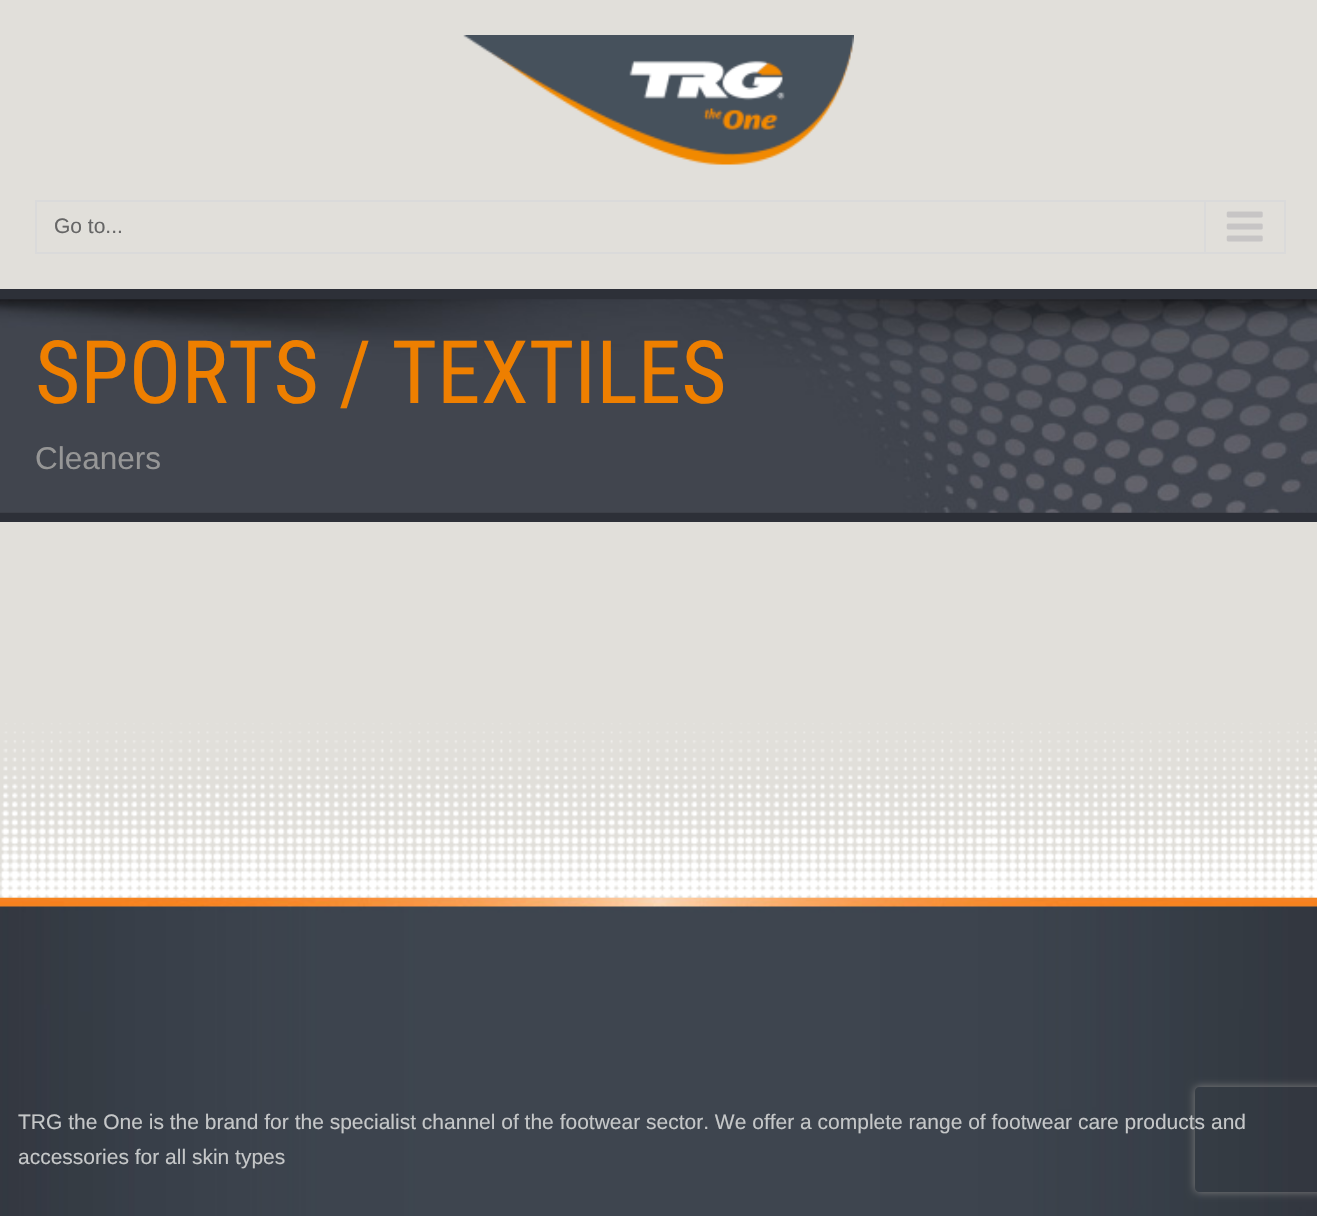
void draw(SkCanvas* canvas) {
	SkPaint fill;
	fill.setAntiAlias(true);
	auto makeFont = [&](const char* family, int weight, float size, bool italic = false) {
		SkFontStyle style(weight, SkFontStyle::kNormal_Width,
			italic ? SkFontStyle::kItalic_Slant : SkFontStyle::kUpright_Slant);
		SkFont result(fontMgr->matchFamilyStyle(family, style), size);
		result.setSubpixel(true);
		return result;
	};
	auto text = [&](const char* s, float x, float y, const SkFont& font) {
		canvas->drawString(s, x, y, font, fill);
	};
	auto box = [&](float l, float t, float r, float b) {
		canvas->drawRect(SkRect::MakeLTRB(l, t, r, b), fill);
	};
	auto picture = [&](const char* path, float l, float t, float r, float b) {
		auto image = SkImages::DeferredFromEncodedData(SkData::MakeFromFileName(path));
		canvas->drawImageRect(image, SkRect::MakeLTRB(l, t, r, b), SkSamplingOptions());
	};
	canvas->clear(0xFFE1DFDA);
	picture("image0.png", 463, 35, 854, 165);
	fill.setStyle(SkPaint::kStroke_Style);
	fill.setStrokeWidth(2);
	fill.setColor(0xFFDADADA);
	canvas->drawRect(SkRect::MakeLTRB(36, 201, 1285, 253), fill);
	fill.setStyle(SkPaint::kFill_Style);
	box(1204, 201, 1206, 252);
	picture("image1.png", 1226, 211, 1263, 242);
	fill.setColor(0xFF2D3038);
	box(0, 289, 1317, 522);
	picture("image2.png", 0, 299, 1317, 513);
	picture("image3.png", 0, 723, 1317, 898);
	picture("image4.png", 0, 897, 1317, 1216);
	canvas->save();
	canvas->clipPath(SkPathBuilder(SkPathFillType::kEvenOdd).moveTo(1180, 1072).lineTo(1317, 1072).lineTo(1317, 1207).lineTo(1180, 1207).close().moveTo(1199, 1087).lineTo(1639, 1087).cubicTo(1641, 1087, 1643, 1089, 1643, 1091).lineTo(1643, 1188).cubicTo(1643, 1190, 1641, 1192, 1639, 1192).lineTo(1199, 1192).cubicTo(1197, 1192, 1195, 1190, 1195, 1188).lineTo(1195, 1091).cubicTo(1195, 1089, 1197, 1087, 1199, 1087).close().detach(), true);
	fill.setColor(0xFF808080);
	fill.setMaskFilter(SkMaskFilter::MakeBlur(kNormal_SkBlurStyle, 4.5f));
	canvas->drawRoundRect(SkRect::MakeLTRB(1195, 1087, 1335, 1192), 4, 4, fill);
	fill.setMaskFilter(nullptr);
	canvas->restore();
	auto font1 = makeFont("Liberation Sans", 400, 21);
	fill.setColor(0xFF666666);
	text("Go to...", 54, 233, font1);
	auto font2 = makeFont("Roboto Condensed", 400, 87.5f);
	fill.setColor(0xFFEE7F00);
	text("SPORTS / TEXTILES", 35, 403, font2);
	auto font3 = makeFont("Liberation Sans", 400, 31.5f);
	fill.setColor(0xFF969696);
	text("Cleaners", 35, 469, font3);
	fill.setColor(0xFFC5C7C8);
	text("TRG the One is the brand for the specialist channel of the footwear sector. We offer a complete range of footwear care products and", 18, 1129, font1);
	text("accessories for all skin types", 18, 1164, font1);
}
